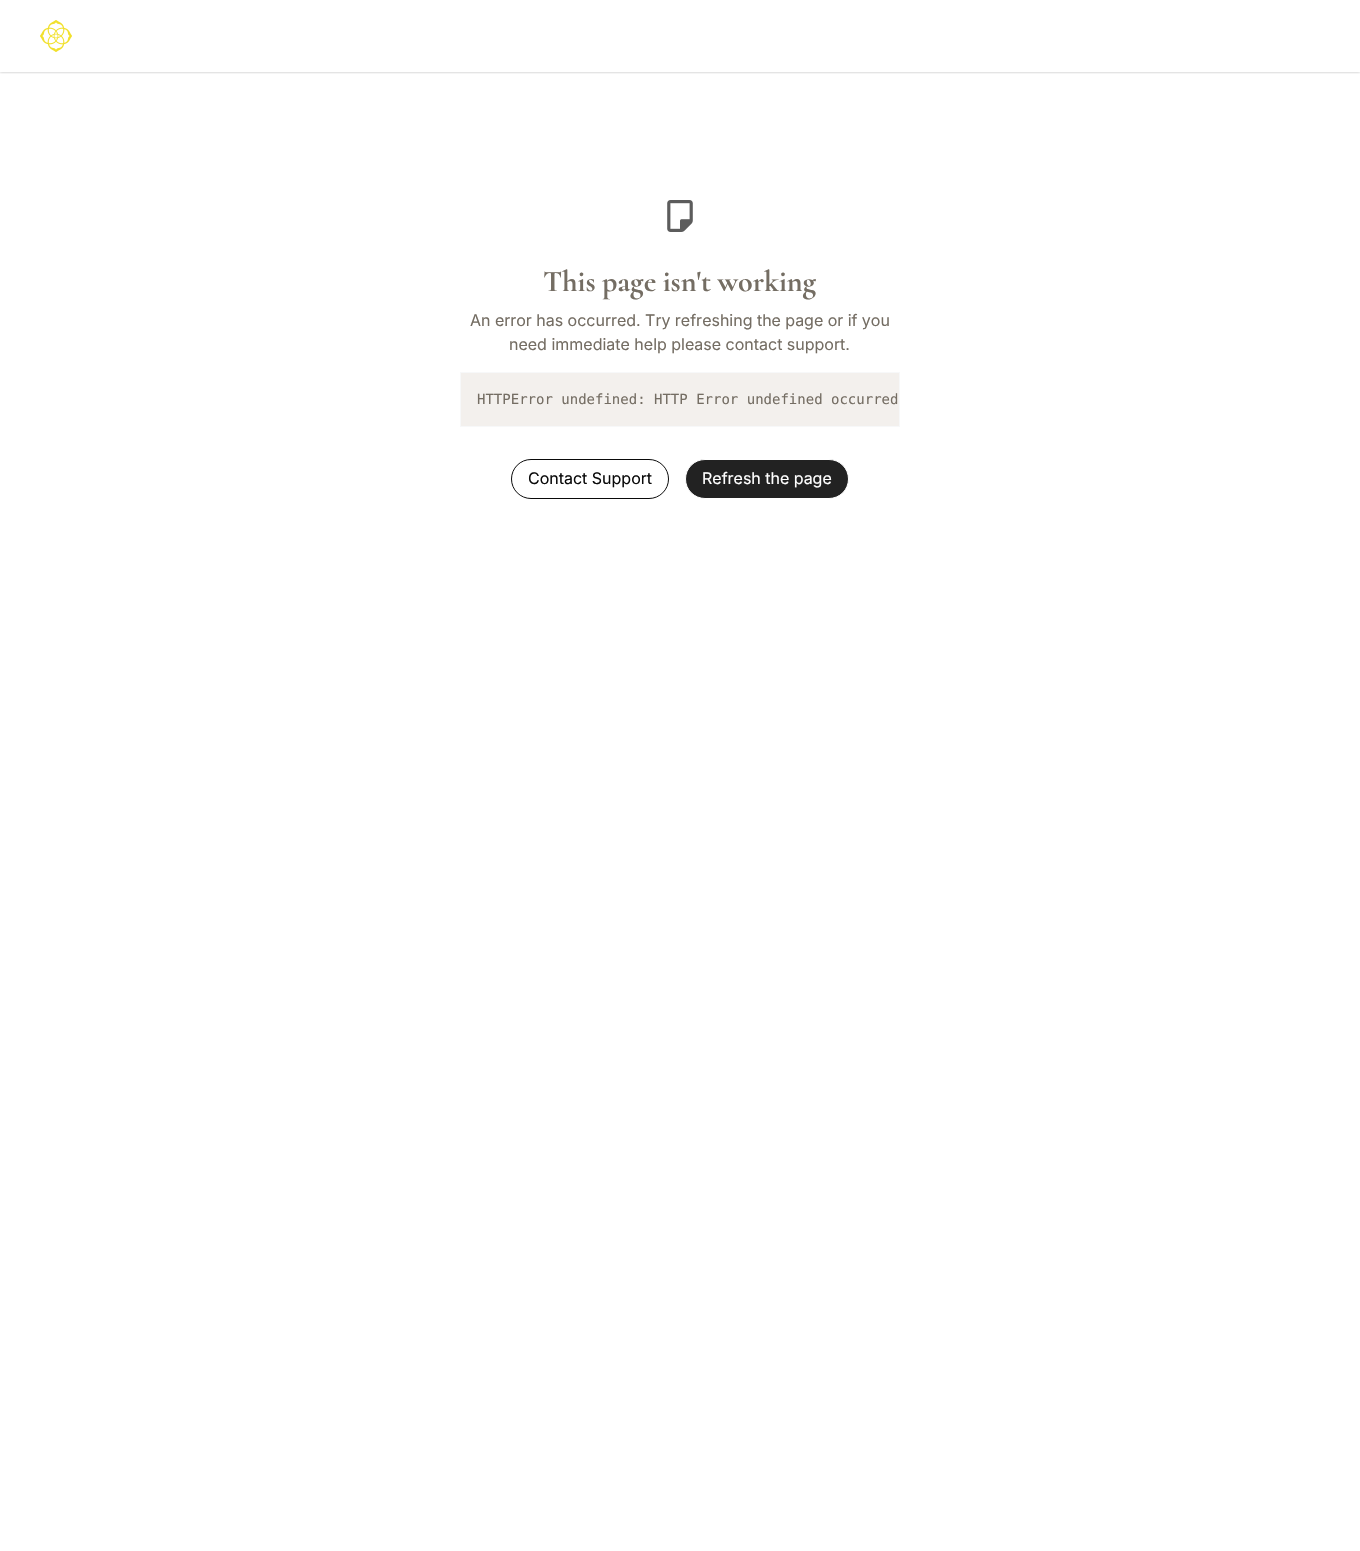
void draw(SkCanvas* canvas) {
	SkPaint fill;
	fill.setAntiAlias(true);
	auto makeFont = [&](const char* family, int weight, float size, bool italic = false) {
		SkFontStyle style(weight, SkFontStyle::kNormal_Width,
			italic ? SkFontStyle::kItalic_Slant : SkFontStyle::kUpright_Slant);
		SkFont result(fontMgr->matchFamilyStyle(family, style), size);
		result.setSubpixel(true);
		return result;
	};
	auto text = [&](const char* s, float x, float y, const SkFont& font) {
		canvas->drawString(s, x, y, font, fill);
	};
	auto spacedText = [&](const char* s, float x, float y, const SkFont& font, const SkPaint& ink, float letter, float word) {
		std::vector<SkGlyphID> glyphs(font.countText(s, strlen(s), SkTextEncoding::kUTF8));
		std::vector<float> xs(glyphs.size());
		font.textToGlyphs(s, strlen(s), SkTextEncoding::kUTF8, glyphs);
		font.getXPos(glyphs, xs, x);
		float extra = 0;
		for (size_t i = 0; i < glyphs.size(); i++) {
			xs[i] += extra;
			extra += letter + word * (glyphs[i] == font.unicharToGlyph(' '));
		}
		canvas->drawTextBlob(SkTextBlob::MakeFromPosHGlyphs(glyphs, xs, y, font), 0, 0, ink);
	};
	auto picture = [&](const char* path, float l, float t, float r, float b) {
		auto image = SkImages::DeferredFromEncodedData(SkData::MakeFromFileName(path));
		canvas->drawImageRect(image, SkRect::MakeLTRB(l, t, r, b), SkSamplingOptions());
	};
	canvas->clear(0xFFFFFFFF);
	canvas->save();
	canvas->clipRect(SkRect::MakeLTRB(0, 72, 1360, 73));
	fill.setColor(0x0F000000);
	fill.setMaskFilter(SkMaskFilter::MakeBlur(kNormal_SkBlurStyle, 1));
	canvas->drawRect(SkRect::MakeLTRB(0, 1, 1360, 73), fill);
	fill.setMaskFilter(nullptr);
	canvas->restore();
	canvas->save();
	canvas->clipRect(SkRect::MakeLTRB(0, 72, 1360, 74));
	fill.setColor(0x1A000000);
	fill.setMaskFilter(SkMaskFilter::MakeBlur(kNormal_SkBlurStyle, 1.5f));
	canvas->drawRect(SkRect::MakeLTRB(0, 1, 1360, 73), fill);
	fill.setMaskFilter(nullptr);
	canvas->restore();
	picture("image0.png", 40, 20, 72, 52);
	picture("image1.png", 667, 200, 693, 232);
	fill.setColor(0xFFF3F0ED);
	canvas->drawRect(SkRect::MakeLTRB(460.5f, 372.5f, 899.5f, 426.5f), fill);
	fill.setStyle(SkPaint::kStroke_Style);
	fill.setStrokeWidth(1);
	fill.setColor(0xFFF7F8F9);
	canvas->drawRect(SkRect::MakeLTRB(460.5f, 372.5f, 899.5f, 426.5f), fill);
	fill.setColor(0xFF0A0A0A);
	canvas->drawRoundRect(SkRect::MakeLTRB(511.5f, 459.5f, 668.5f, 498.5f), 19.5f, 19.5f, fill);
	fill.setStyle(SkPaint::kFill_Style);
	fill.setColor(0xFF222222);
	canvas->drawRoundRect(SkRect::MakeLTRB(685.5f, 459.5f, 848.5f, 498.5f), 19.5f, 19.5f, fill);
	fill.setStyle(SkPaint::kStroke_Style);
	fill.setColor(0xFFFFFFFF);
	canvas->drawRoundRect(SkRect::MakeLTRB(685.5f, 459.5f, 848.5f, 498.5f), 19.5f, 19.5f, fill);
	auto font1 = makeFont("Cormorant", 700, 30);
	fill.setStyle(SkPaint::kFill_Style);
	fill.setColor(0xFF746D63);
	spacedText("This page isn't working", 543, 291, font1, fill, 0, -0.5f);
	auto font2 = makeFont("Inter", 400, 16);
	spacedText("An error has occurred. Try refreshing the page or if you", 470, 326, font2, fill, 0, -0.1f);
	text("need immediate help please contact support.", 509, 350, font2);
	auto font3 = makeFont("DejaVu Sans Mono", 400, 14);
	text("HTTPError undefined: HTTP Error undefined occurred", 477, 404, font3);
	fill.setColor(0xFF0A0A0A);
	text("Contact Support", 528, 484, font2);
	fill.setColor(0xFFFFFFFF);
	text("Refresh the page", 702, 484, font2);
}
